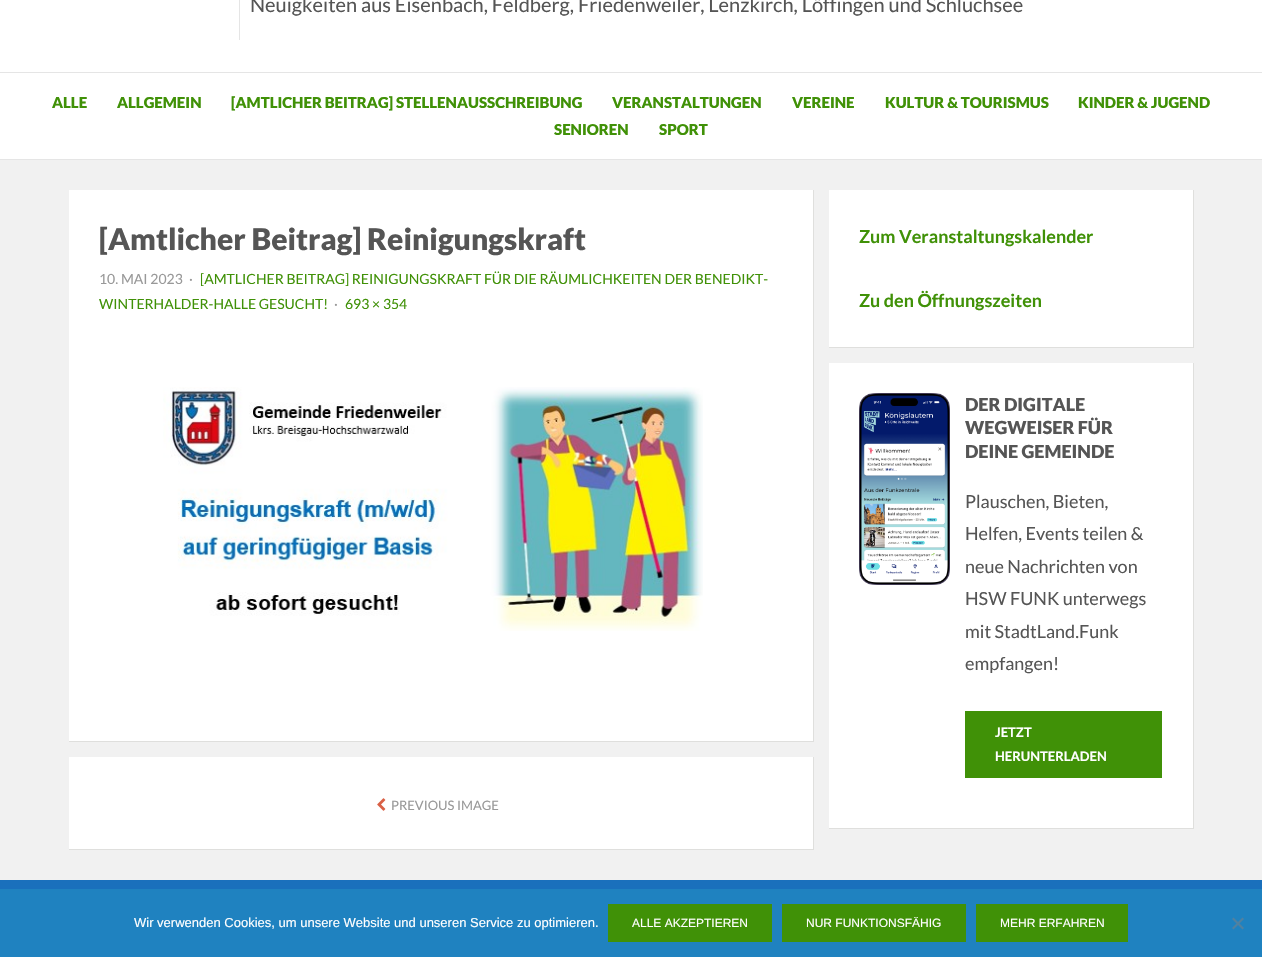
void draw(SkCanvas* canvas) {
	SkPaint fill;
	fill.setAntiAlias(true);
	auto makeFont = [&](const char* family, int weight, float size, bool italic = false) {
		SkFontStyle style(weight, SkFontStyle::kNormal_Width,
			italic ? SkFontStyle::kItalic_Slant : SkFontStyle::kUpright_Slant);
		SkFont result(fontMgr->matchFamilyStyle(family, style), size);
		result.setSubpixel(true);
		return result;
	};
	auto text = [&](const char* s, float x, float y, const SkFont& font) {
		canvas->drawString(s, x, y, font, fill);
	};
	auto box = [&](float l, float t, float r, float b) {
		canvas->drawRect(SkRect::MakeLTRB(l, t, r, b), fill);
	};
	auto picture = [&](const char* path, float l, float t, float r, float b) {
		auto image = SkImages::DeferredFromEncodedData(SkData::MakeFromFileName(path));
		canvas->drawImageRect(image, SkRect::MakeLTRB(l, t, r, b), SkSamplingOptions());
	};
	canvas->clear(0xFFF1F1F1);
	fill.setColor(0xFFFFFFFF);
	box(0, 0, 1262, 72);
	fill.setColor(0xFFE5E5E5);
	box(239, 0, 240, 40);
	fill.setColor(0xFFFFFFFF);
	box(0, 73, 1262, 159);
	fill.setColor(0xFFE5E5E5);
	box(0, 72, 1262, 73);
	box(0, 159, 1262, 160);
	fill.setColor(0xFFFFFFFF);
	box(69, 190, 813, 741);
	fill.setColor(0xFFDFDFDD);
	box(813, 190, 814, 742);
	box(69, 741, 814, 742);
	picture("image0.png", 163, 387, 703, 631);
	fill.setColor(0xFFFFFFFF);
	box(69, 757, 813, 849);
	fill.setColor(0xFFDFDFDD);
	box(813, 757, 814, 850);
	box(69, 849, 814, 850);
	picture("image1.png", 377, 798, 386, 811);
	fill.setColor(0xFFFFFFFF);
	box(829, 190, 1193, 347);
	fill.setColor(0xFFDFDFDD);
	box(1193, 190, 1194, 348);
	box(829, 347, 1194, 348);
	fill.setColor(0xFFFFFFFF);
	box(829, 363, 1193, 828);
	fill.setColor(0xFFDFDFDD);
	box(1193, 363, 1194, 829);
	box(829, 828, 1194, 829);
	picture("image2.png", 859, 393, 950, 585);
	fill.setColor(0xFF409107);
	box(965, 711, 1162, 778);
	fill.setColor(0xFF1A70BC);
	box(0, 880, 1262, 889);
	fill.setColor(0xFF1F82C0);
	box(0, 889, 1262, 957);
	fill.setColor(0xFF409107);
	box(608, 904, 772, 942);
	box(782, 904, 966, 942);
	box(976, 904, 1128, 942);
	fill.setColor(0xFF5081A0);
	canvas->drawPath(SkPathBuilder().moveTo(1242.5f, 917.5f).lineTo(1244, 919).lineTo(1233.5f, 929.5f).lineTo(1232, 928).close().detach(), fill);
	canvas->drawPath(SkPathBuilder().moveTo(1232, 919).lineTo(1233.5f, 917.5f).lineTo(1244, 928).lineTo(1242.5f, 929.5f).close().detach(), fill);
	auto font1 = makeFont("Lato", 400, 20);
	fill.setColor(0xFF555555);
	text("Neuigkeiten aus Eisenbach, Feldberg, Friedenweiler, Lenzkirch, Löffingen und Schluchsee", 250, 12, font1);
	auto font2 = makeFont("Lato", 900, 15);
	fill.setColor(0xFF409107);
	text("ALLE", 52, 108, font2);
	text("ALLGEMEIN", 117, 108, font2);
	text("[AMTLICHER BEITRAG] STELLENAUSSCHREIBUNG", 231, 108, font2);
	text("VERANSTALTUNGEN", 612, 108, font2);
	text("VEREINE", 792, 108, font2);
	text("KULTUR & TOURISMUS", 885, 108, font2);
	text("KINDER & JUGEND", 1078, 108, font2);
	text("SENIOREN", 554, 135, font2);
	text("SPORT", 659, 135, font2);
	auto font3 = makeFont("Lato", 900, 30);
	fill.setColor(0xFF555555);
	text("[Amtlicher Beitrag] Reinigungskraft", 99, 250, font3);
	auto font4 = makeFont("Lato", 400, 14);
	fill.setColor(0xFF999999);
	text("10. MAI 2023", 99, 284, font4);
	text("·", 189, 284, font4);
	fill.setColor(0xFF409107);
	text("[AMTLICHER BEITRAG] REINIGUNGSKRAFT FÜR DIE RÄUMLICHKEITEN DER BENEDIKT-", 200, 284, font4);
	text("WINTERHALDER-HALLE GESUCHT!", 99, 309, font4);
	fill.setColor(0xFF999999);
	text("·", 334, 309, font4);
	fill.setColor(0xFF409107);
	text("693 × 354", 345, 309, font4);
	auto font5 = makeFont("Lato", 400, 13);
	fill.setColor(0xFF999999);
	text("PREVIOUS IMAGE", 391, 810, font5);
	auto font6 = makeFont("Lato", 700, 18);
	fill.setColor(0xFF409107);
	text("Zum Veranstaltungskalender", 859, 243, font6);
	text("Zu den Öffnungszeiten", 859, 307, font6);
	auto font7 = makeFont("Lato", 900, 18);
	fill.setColor(0xFF555555);
	text("DER DIGITALE", 965, 411, font7);
	text("WEGWEISER FÜR", 965, 434, font7);
	text("DEINE GEMEINDE", 965, 458, font7);
	auto font8 = makeFont("Lato", 400, 18);
	text("Plauschen, Bieten,", 965, 508, font8);
	text("Helfen, Events teilen &", 965, 540, font8);
	text("neue Nachrichten von", 965, 573, font8);
	text("HSW FUNK unterwegs", 965, 605, font8);
	text("mit StadtLand.Funk", 965, 638, font8);
	text("empfangen!", 965, 670, font8);
	auto font9 = makeFont("Lato", 700, 13);
	fill.setColor(0xFFFFFFFF);
	text("JETZT", 995, 737, font9);
	text("HERUNTERLADEN", 995, 761, font9);
	auto font10 = makeFont("Liberation Sans", 400, 13);
	text("Wir verwenden Cookies, um unsere Website und unseren Service zu optimieren.", 134, 927, font10);
	auto font11 = makeFont("Liberation Sans", 400, 12);
	text("ALLE AKZEPTIEREN", 632, 927, font11);
	text("NUR FUNKTIONSFÄHIG", 806, 927, font11);
	text("MEHR ERFAHREN", 1000, 927, font11);
}
